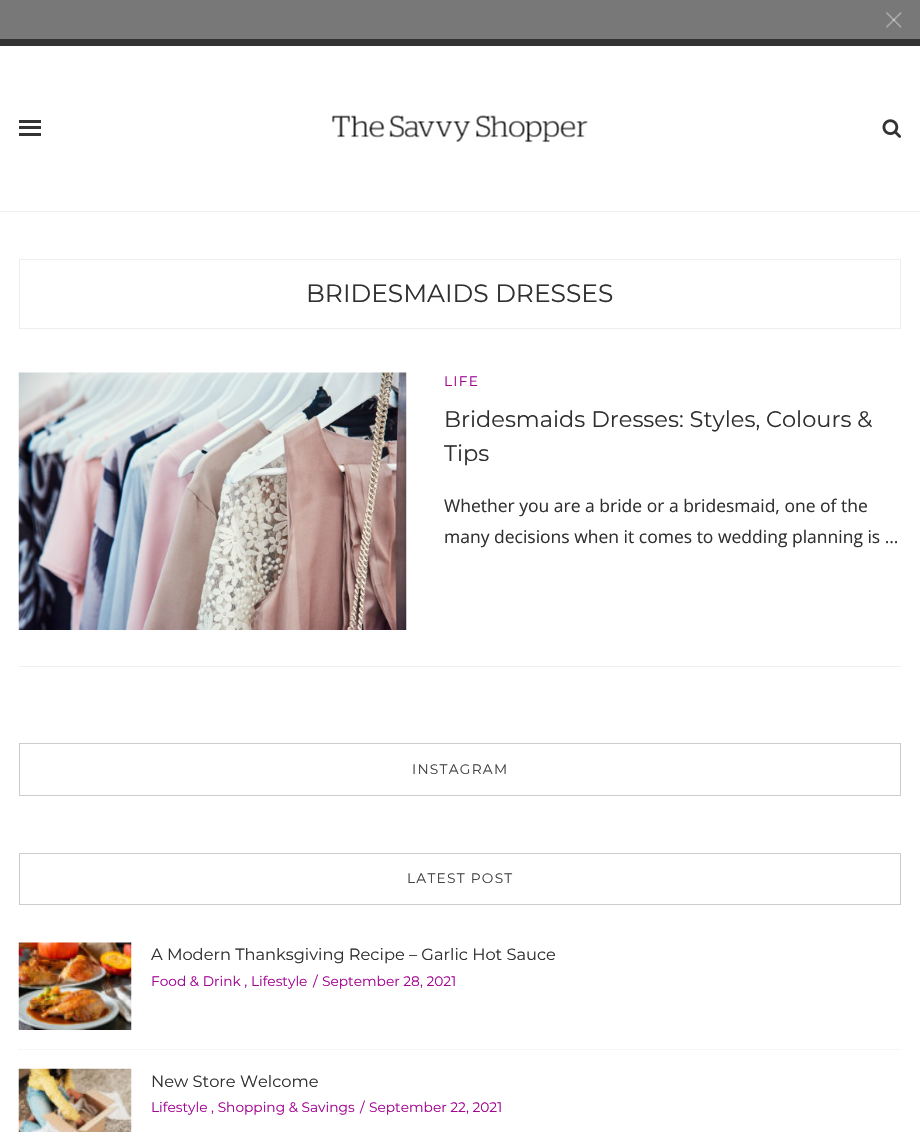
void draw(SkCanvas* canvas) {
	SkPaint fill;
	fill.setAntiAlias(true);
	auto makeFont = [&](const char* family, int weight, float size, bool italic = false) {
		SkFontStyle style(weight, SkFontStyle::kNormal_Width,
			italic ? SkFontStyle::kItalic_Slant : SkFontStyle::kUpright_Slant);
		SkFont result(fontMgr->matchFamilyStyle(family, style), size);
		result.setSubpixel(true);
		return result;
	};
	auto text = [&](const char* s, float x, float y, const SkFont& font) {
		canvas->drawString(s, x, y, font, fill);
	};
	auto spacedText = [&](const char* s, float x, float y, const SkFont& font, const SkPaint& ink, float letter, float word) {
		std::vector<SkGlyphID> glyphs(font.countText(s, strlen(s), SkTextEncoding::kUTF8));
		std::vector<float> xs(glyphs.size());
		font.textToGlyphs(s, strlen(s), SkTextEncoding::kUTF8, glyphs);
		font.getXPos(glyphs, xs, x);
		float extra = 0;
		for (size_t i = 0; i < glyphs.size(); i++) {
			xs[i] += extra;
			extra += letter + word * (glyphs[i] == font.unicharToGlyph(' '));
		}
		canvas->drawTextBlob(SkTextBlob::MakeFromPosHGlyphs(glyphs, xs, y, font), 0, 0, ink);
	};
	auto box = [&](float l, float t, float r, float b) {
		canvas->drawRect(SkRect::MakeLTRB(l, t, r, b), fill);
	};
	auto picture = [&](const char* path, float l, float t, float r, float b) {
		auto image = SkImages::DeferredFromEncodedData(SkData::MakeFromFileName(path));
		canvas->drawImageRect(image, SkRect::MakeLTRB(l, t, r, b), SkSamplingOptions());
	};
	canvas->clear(0xFF787878);
	picture("image0.png", 886, 12, 902, 28);
	fill.setColor(0xFFFFFFFF);
	box(0, 46, 920, 1132);
	fill.setColor(0xFF333333);
	box(0, 39, 920, 46);
	fill.setColor(0xFFEEEEEE);
	box(0, 211, 920, 212);
	fill.setColor(0xFF333333);
	box(19, 120, 41, 123);
	box(19, 126, 41, 129);
	box(19, 133, 41, 136);
	picture("image1.png", 331, 115, 588, 143);
	picture("image2.png", 882, 119, 902, 138);
	fill.setStyle(SkPaint::kStroke_Style);
	fill.setStrokeWidth(1);
	fill.setColor(0xFFEEEEEE);
	canvas->drawRect(SkRect::MakeLTRB(19.5f, 259.5f, 900.5f, 328.5f), fill);
	picture("image3.png", 18, 372, 407, 630);
	fill.setStyle(SkPaint::kFill_Style);
	box(19, 666, 901, 667);
	fill.setStyle(SkPaint::kStroke_Style);
	fill.setColor(0xFFCCCCCC);
	canvas->drawRect(SkRect::MakeLTRB(19.5f, 743.5f, 900.5f, 795.5f), fill);
	canvas->drawRect(SkRect::MakeLTRB(19.5f, 853.5f, 900.5f, 904.5f), fill);
	fill.setStrokeWidth(1.2f);
	fill.setColor(0xFFEEEEEE);
	fill.setPathEffect(SkDashPathEffect::Make({{1.25f, 1.25f}}, 0));
	canvas->drawPath(SkPathBuilder().moveTo(19, 1049.5f).lineTo(901, 1049.5f).detach(), fill);
	fill.setPathEffect(nullptr);
	picture("image4.png", 18, 942, 132, 1030);
	picture("image5.png", 18, 1068, 132, 1132);
	auto font1 = makeFont("Montserrat", 400, 25);
	fill.setStyle(SkPaint::kFill_Style);
	fill.setColor(0xFF303030);
	text("BRIDESMAIDS DRESSES", 306, 302, font1);
	auto font2 = makeFont("Montserrat", 400, 13.75f);
	fill.setColor(0xFFA30593);
	spacedText("LIFE", 444, 386, font2, fill, 1.25f, 0);
	auto font3 = makeFont("Montserrat", 400, 22.5f);
	fill.setColor(0xFF303030);
	text("Bridesmaids Dresses: Styles, Colours &", 444, 427, font3);
	text("Tips", 444, 461, font3);
	auto font4 = makeFont("Open Sans", 400, 17.5f);
	text("Whether you are a bride or a bridesmaid, one of the", 444, 512, font4);
	text("many decisions when it comes to wedding planning is …", 444, 543, font4);
	fill.setColor(0xFF444444);
	spacedText("INSTAGRAM", 412, 774, font2, fill, 1.25f, 0);
	spacedText("LATEST POST", 407, 883, font2, fill, 1.25f, 0);
	auto font5 = makeFont("Montserrat", 400, 16.25f);
	fill.setColor(0xFF303030);
	text("A Modern Thanksgiving Recipe – Garlic Hot Sauce", 151, 960, font5);
	fill.setColor(0xFFA30593);
	text("Food & Drink , Lifestyle", 151, 986, font2);
	text("/", 313, 986, font2);
	text("September 28, 2021", 322, 986, font2);
	fill.setColor(0xFF303030);
	text("New Store Welcome", 151, 1087, font5);
	fill.setColor(0xFFA30593);
	text("Lifestyle , Shopping & Savings", 151, 1112, font2);
	text("/", 360, 1112, font2);
	text("September 22, 2021", 369, 1112, font2);
}
